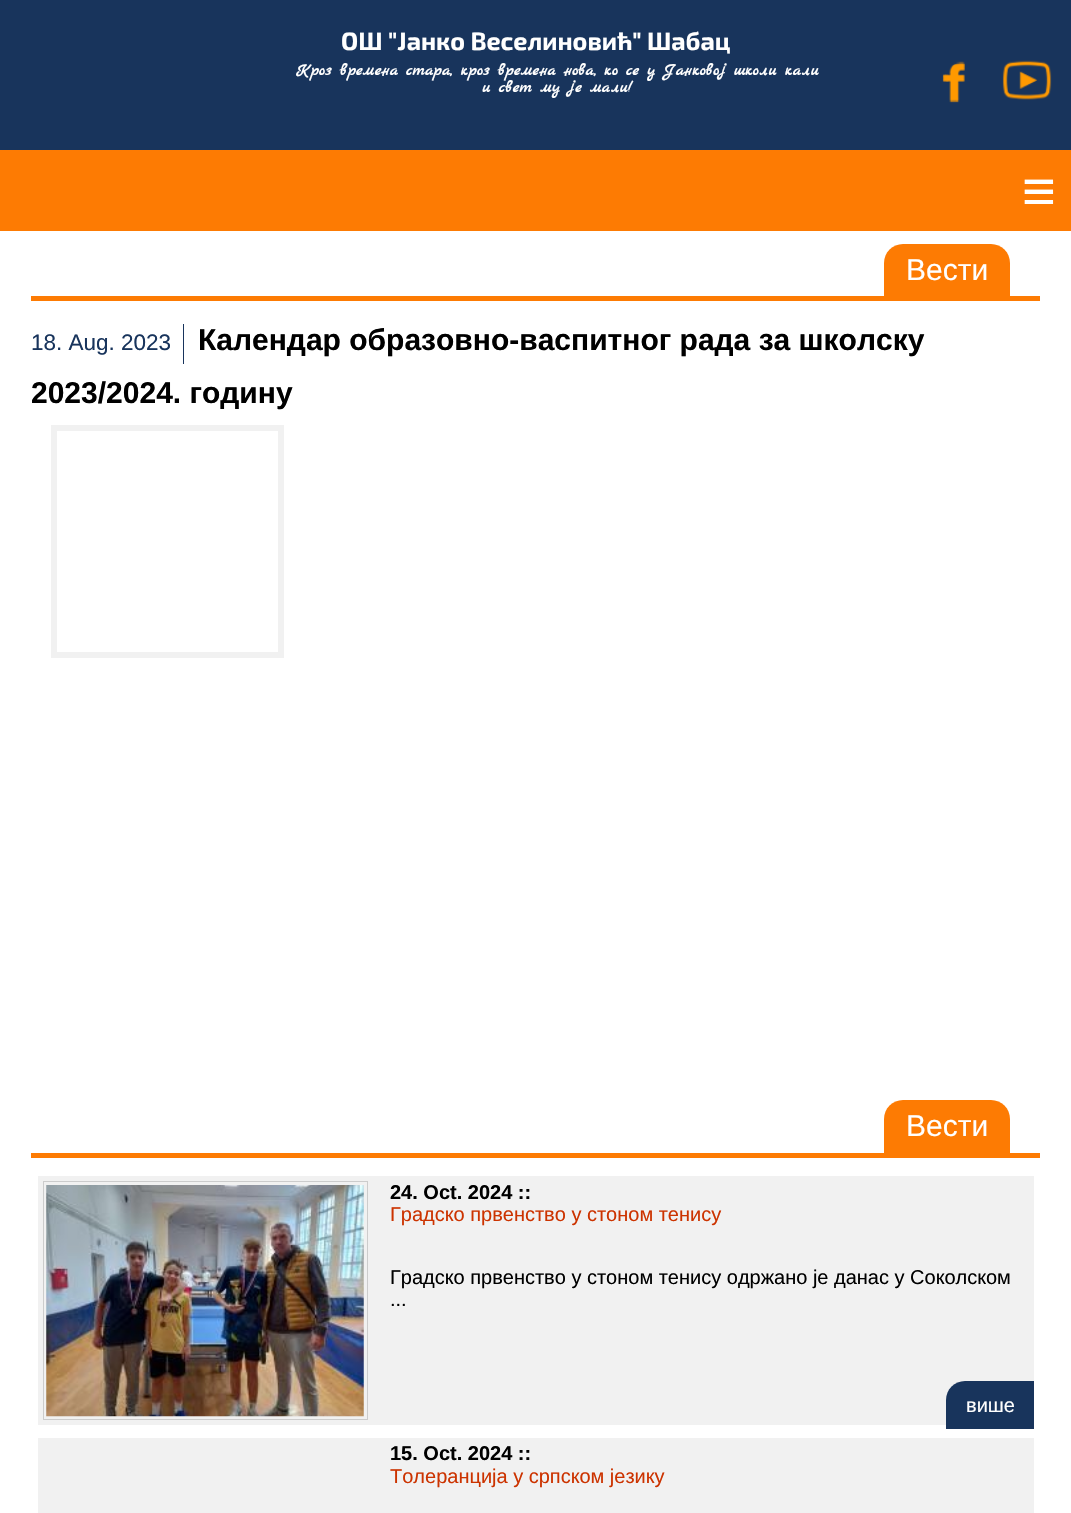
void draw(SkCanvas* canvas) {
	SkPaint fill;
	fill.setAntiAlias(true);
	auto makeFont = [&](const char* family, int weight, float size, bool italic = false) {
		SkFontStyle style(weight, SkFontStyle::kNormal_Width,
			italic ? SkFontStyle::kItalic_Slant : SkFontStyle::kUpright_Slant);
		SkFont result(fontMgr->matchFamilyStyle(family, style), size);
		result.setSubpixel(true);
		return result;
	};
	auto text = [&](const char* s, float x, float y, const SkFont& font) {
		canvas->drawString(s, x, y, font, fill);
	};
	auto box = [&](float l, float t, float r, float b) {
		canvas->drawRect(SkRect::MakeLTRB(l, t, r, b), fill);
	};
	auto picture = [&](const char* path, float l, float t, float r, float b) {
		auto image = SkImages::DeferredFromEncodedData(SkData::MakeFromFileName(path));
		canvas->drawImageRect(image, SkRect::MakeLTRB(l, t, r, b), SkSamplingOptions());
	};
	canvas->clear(0xFFFFFFFF);
	fill.setColor(0xFF18345C);
	box(0, 0, 1071, 150);
	picture("image0.png", 942, 61, 965, 103);
	picture("image1.png", 1002, 60, 1052, 100);
	fill.setColor(0xFFFD7B03);
	box(0, 150, 1071, 231);
	box(31, 296, 1040, 301);
	canvas->drawPath(SkPathBuilder().moveTo(903, 244).lineTo(991, 244).cubicTo(1001.5f, 244, 1010, 252.5f, 1010, 263).lineTo(1010, 296).lineTo(884, 296).lineTo(884, 263).cubicTo(884, 252.5f, 892.5f, 244, 903, 244).close().detach(), fill);
	fill.setColor(0xFF18345C);
	box(183, 324, 184, 364);
	fill.setStyle(SkPaint::kStroke_Style);
	fill.setStrokeWidth(6);
	fill.setColor(0xFFF1F1F1);
	canvas->drawRect(SkRect::MakeLTRB(54, 428, 281, 655), fill);
	fill.setStyle(SkPaint::kFill_Style);
	fill.setColor(0xFFFD7B03);
	box(31, 1153, 1040, 1158);
	canvas->drawPath(SkPathBuilder().moveTo(903, 1100).lineTo(991, 1100).cubicTo(1001.5f, 1100, 1010, 1108.5f, 1010, 1119).lineTo(1010, 1153).lineTo(884, 1153).lineTo(884, 1119).cubicTo(884, 1108.5f, 892.5f, 1100, 903, 1100).close().detach(), fill);
	fill.setColor(0xFFF1F1F1);
	box(38, 1176, 1034, 1425);
	fill.setStyle(SkPaint::kStroke_Style);
	fill.setStrokeWidth(1);
	fill.setColor(0xFFCCCCCC);
	canvas->drawRect(SkRect::MakeLTRB(43.5f, 1181.5f, 367.5f, 1419.5f), fill);
	picture("image2.png", 46, 1185, 364, 1417);
	fill.setStyle(SkPaint::kFill_Style);
	fill.setColor(0xFF18345C);
	canvas->drawPath(SkPathBuilder().moveTo(965, 1381).lineTo(1034, 1381).lineTo(1034, 1429).lineTo(946, 1429).lineTo(946, 1400).cubicTo(946, 1389.5f, 954.5f, 1381, 965, 1381).close().detach(), fill);
	fill.setColor(0xFFF1F1F1);
	box(38, 1438, 1034, 1513);
	auto font1 = makeFont("Exo 2", 700, 25);
	fill.setColor(0xFFFFFFFF);
	text("ОШ \"Јанко Веселиновић\" Шабац", 341, 50, font1);
	auto font2 = makeFont("Marck Script", 700, 16.9f);
	text("Кроз времена стара, кроз времена нова, ко се у Јанковој школи кали", 296, 75, font2);
	text("и свет му је мали!", 482, 92, font2);
	auto font3 = makeFont("Liberation Sans", 400, 58);
	text("≡", 1022, 211, font3);
	auto font4 = makeFont("Liberation Sans", 400, 30);
	text("Вести", 906, 280, font4);
	auto font5 = makeFont("Liberation Sans", 400, 22.5f);
	fill.setColor(0xFF18345C);
	text("18. Aug. 2023", 31, 350, font5);
	auto font6 = makeFont("Liberation Sans", 700, 30);
	fill.setColor(0xFF000000);
	text("Календар образовно-васпитног рада за школску", 198, 350, font6);
	text("2023/2024. годину", 31, 403, font6);
	fill.setColor(0xFFFFFFFF);
	text("Вести", 906, 1136, font4);
	auto font7 = makeFont("Liberation Sans", 700, 20);
	fill.setColor(0xFF000000);
	text("24. Oct. 2024 ::", 390, 1199, font7);
	auto font8 = makeFont("Liberation Sans", 400, 20);
	fill.setColor(0xFFCC3300);
	text("Градско првенство у стоном тенису", 390, 1221, font8);
	fill.setColor(0xFF000000);
	text("Градско првенство у стоном тенису одржано је данас у Соколском", 390, 1284, font8);
	text("...", 390, 1306, font8);
	fill.setColor(0xFFFFFFFF);
	text("више", 966, 1412, font8);
	fill.setColor(0xFF000000);
	text("15. Oct. 2024 ::", 390, 1460, font7);
	fill.setColor(0xFFCC3300);
	text("Толеранција у српском језику", 390, 1483, font8);
}
